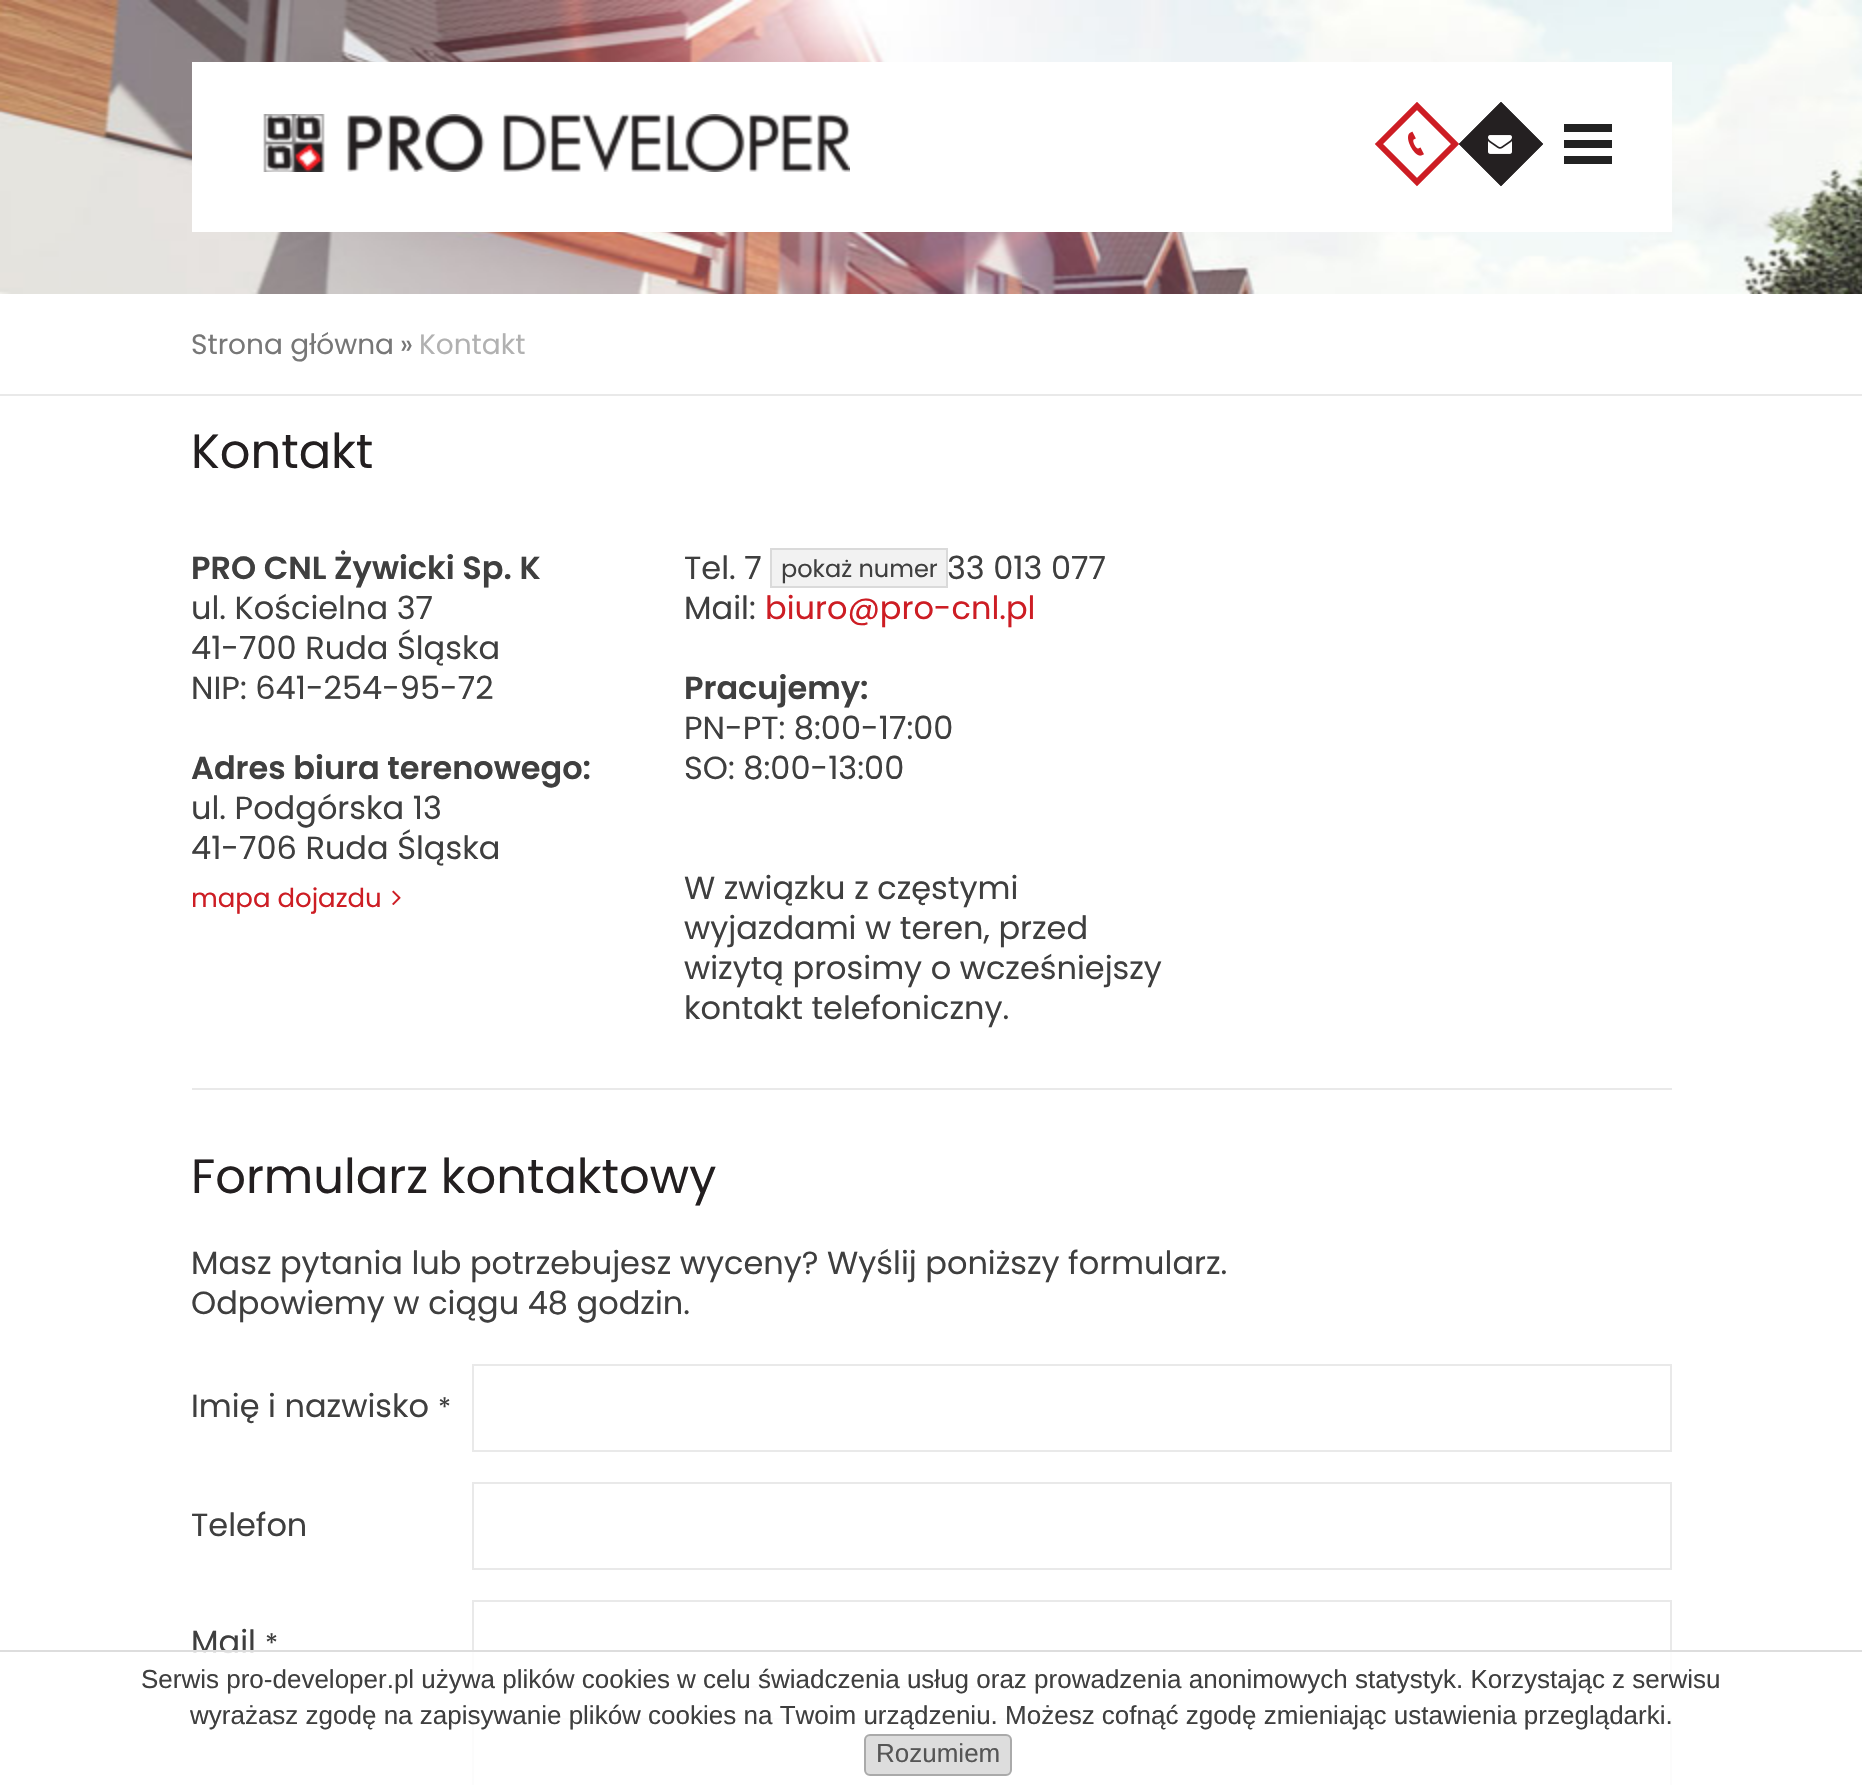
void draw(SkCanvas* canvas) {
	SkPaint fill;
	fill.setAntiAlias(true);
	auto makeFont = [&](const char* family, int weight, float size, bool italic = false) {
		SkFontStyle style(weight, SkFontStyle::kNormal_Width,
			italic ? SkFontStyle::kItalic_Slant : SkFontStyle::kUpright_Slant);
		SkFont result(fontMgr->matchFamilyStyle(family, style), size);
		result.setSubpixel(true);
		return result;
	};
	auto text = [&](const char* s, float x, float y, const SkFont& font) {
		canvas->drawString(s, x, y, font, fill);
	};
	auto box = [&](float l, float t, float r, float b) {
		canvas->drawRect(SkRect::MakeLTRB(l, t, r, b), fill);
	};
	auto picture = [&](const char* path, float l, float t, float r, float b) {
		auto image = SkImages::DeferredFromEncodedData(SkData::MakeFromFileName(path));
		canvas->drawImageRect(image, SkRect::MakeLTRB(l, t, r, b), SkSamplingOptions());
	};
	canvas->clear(0xFFFFFFFF);
	picture("image0.png", 0, 0, 1862, 294);
	fill.setColor(0xFFFFFFFF);
	box(192, 62, 1672, 232);
	fill.setColor(0xFF222222);
	box(1564, 124, 1612, 132);
	box(1564, 140, 1612, 148);
	box(1564, 156, 1612, 164);
	picture("image1.png", 263, 114, 850, 172);
	fill.setStyle(SkPaint::kStroke_Style);
	fill.setStrokeWidth(6);
	fill.setColor(0xFFCD1D24);
	canvas->drawPath(SkPathBuilder().moveTo(1379, 144).lineTo(1417, 106).lineTo(1455, 144).lineTo(1417, 182).close().detach(), fill);
	picture("image2.png", 1408, 131, 1424, 156);
	fill.setStyle(SkPaint::kFill_Style);
	fill.setColor(0xFF242021);
	canvas->drawPath(SkPathBuilder().moveTo(1459, 144).lineTo(1501, 102).lineTo(1543, 144).lineTo(1501, 186).close().detach(), fill);
	fill.setStyle(SkPaint::kStroke_Style);
	canvas->drawPath(SkPathBuilder().moveTo(1463, 144).lineTo(1501, 106).lineTo(1539, 144).lineTo(1501, 182).close().detach(), fill);
	picture("image3.png", 1488, 135, 1512, 154);
	fill.setStyle(SkPaint::kFill_Style);
	fill.setColor(0xFFE9E9E9);
	box(0, 394, 1862, 396);
	picture("image4.png", 392, 890, 401, 905);
	fill.setColor(0xFFF2F2F2);
	canvas->drawRect(SkRect::MakeLTRB(771, 549, 947, 587), fill);
	fill.setStyle(SkPaint::kStroke_Style);
	fill.setStrokeWidth(2);
	fill.setColor(0xFFDADADA);
	canvas->drawRect(SkRect::MakeLTRB(771, 549, 947, 587), fill);
	fill.setStyle(SkPaint::kFill_Style);
	fill.setColor(0xFFE9E9E9);
	box(192, 1088, 1672, 1090);
	fill.setStyle(SkPaint::kStroke_Style);
	canvas->drawRect(SkRect::MakeLTRB(473, 1365, 1671, 1451), fill);
	canvas->drawRect(SkRect::MakeLTRB(473, 1483, 1671, 1569), fill);
	canvas->drawRect(SkRect::MakeLTRB(473, 1601, 1671, 1687), fill);
	canvas->drawRect(SkRect::MakeLTRB(473, 1719, 1671, 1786), fill);
	auto font1 = makeFont("Poppins", 400, 28);
	fill.setStyle(SkPaint::kFill_Style);
	fill.setColor(0xFF777777);
	text("Strona główna", 191, 354, font1);
	text("»", 400, 354, font1);
	fill.setColor(0xFFB1B1B1);
	text("Kontakt", 419, 354, font1);
	auto font2 = makeFont("Poppins", 400, 48);
	fill.setColor(0xFF231F20);
	text("Kontakt", 191, 468, font2);
	auto font3 = makeFont("Poppins", 600, 32);
	fill.setColor(0xFF3F3F3F);
	text("PRO CNL Żywicki Sp. K", 191, 579, font3);
	auto font4 = makeFont("Poppins", 400, 32);
	text("ul. Kościelna 37", 191, 619, font4);
	text("41-700 Ruda Śląska", 191, 659, font4);
	text("NIP: 641-254-95-72", 191, 699, font4);
	text("Adres biura terenowego:", 191, 779, font3);
	text("ul. Podgórska 13", 191, 819, font4);
	text("41-706 Ruda Śląska", 191, 859, font4);
	auto font5 = makeFont("Poppins", 400, 26);
	fill.setColor(0xFFCD1D24);
	text("mapa dojazdu", 191, 907, font5);
	fill.setColor(0xFF3F3F3F);
	text("Tel. 7", 684, 579, font4);
	auto font6 = makeFont("Poppins", 400, 24);
	text("pokaż numer", 781, 577, font6);
	text("33 013 077", 947, 579, font4);
	text("Mail:", 684, 619, font4);
	fill.setColor(0xFFCD1D24);
	text("biuro@pro-cnl.pl", 765, 619, font4);
	fill.setColor(0xFF3F3F3F);
	text("Pracujemy:", 684, 699, font3);
	text("PN-PT: 8:00-17:00", 684, 739, font4);
	text("SO: 8:00-13:00", 684, 779, font4);
	text("W związku z częstymi", 684, 899, font4);
	text("wyjazdami w teren, przed", 684, 939, font4);
	text("wizytą prosimy o wcześniejszy", 684, 979, font4);
	text("kontakt telefoniczny.", 684, 1019, font4);
	fill.setColor(0xFF231F20);
	text("Formularz kontaktowy", 191, 1193, font2);
	fill.setColor(0xFF3F3F3F);
	text("Masz pytania lub potrzebujesz wyceny? Wyślij poniższy formularz.", 191, 1274, font4);
	text("Odpowiemy w ciągu 48 godzin.", 191, 1314, font4);
	text("Imię i nazwisko", 191, 1417, font4);
	auto font7 = makeFont("Poppins", 400, 27);
	text("*", 438, 1417, font7);
	text("Telefon", 191, 1536, font4);
	text("Mail", 191, 1653, font4);
	text("*", 265, 1653, font7);
	fill.setColor(0xD9FFFFFF);
	box(193, 1652, 1672, 1785);
	fill.setColor(0xFFDDDDDD);
	box(0, 1650, 1862, 1652);
	auto font8 = makeFont("Liberation Sans", 400, 26);
	fill.setColor(0xFF3F3F3F);
	text("Serwis pro-developer.pl używa plików cookies w celu świadczenia usług oraz prowadzenia anonimowych statystyk. Korzystając z serwisu", 141, 1688, font8);
	text("wyrażasz zgodę na zapisywanie plików cookies na Twoim urządzeniu. Możesz cofnąć zgodę zmieniając ustawienia przeglądarki.", 190, 1724, font8);
	fill.setColor(0xFFDDDDDD);
	canvas->drawRoundRect(SkRect::MakeLTRB(865, 1735, 1011, 1775), 5, 5, fill);
	fill.setStyle(SkPaint::kStroke_Style);
	fill.setColor(0xFFAAAAAA);
	canvas->drawRoundRect(SkRect::MakeLTRB(865, 1735, 1011, 1775), 5, 5, fill);
	fill.setStyle(SkPaint::kFill_Style);
	fill.setColor(0xFF555555);
	text("Rozumiem", 876, 1762, font8);
}
